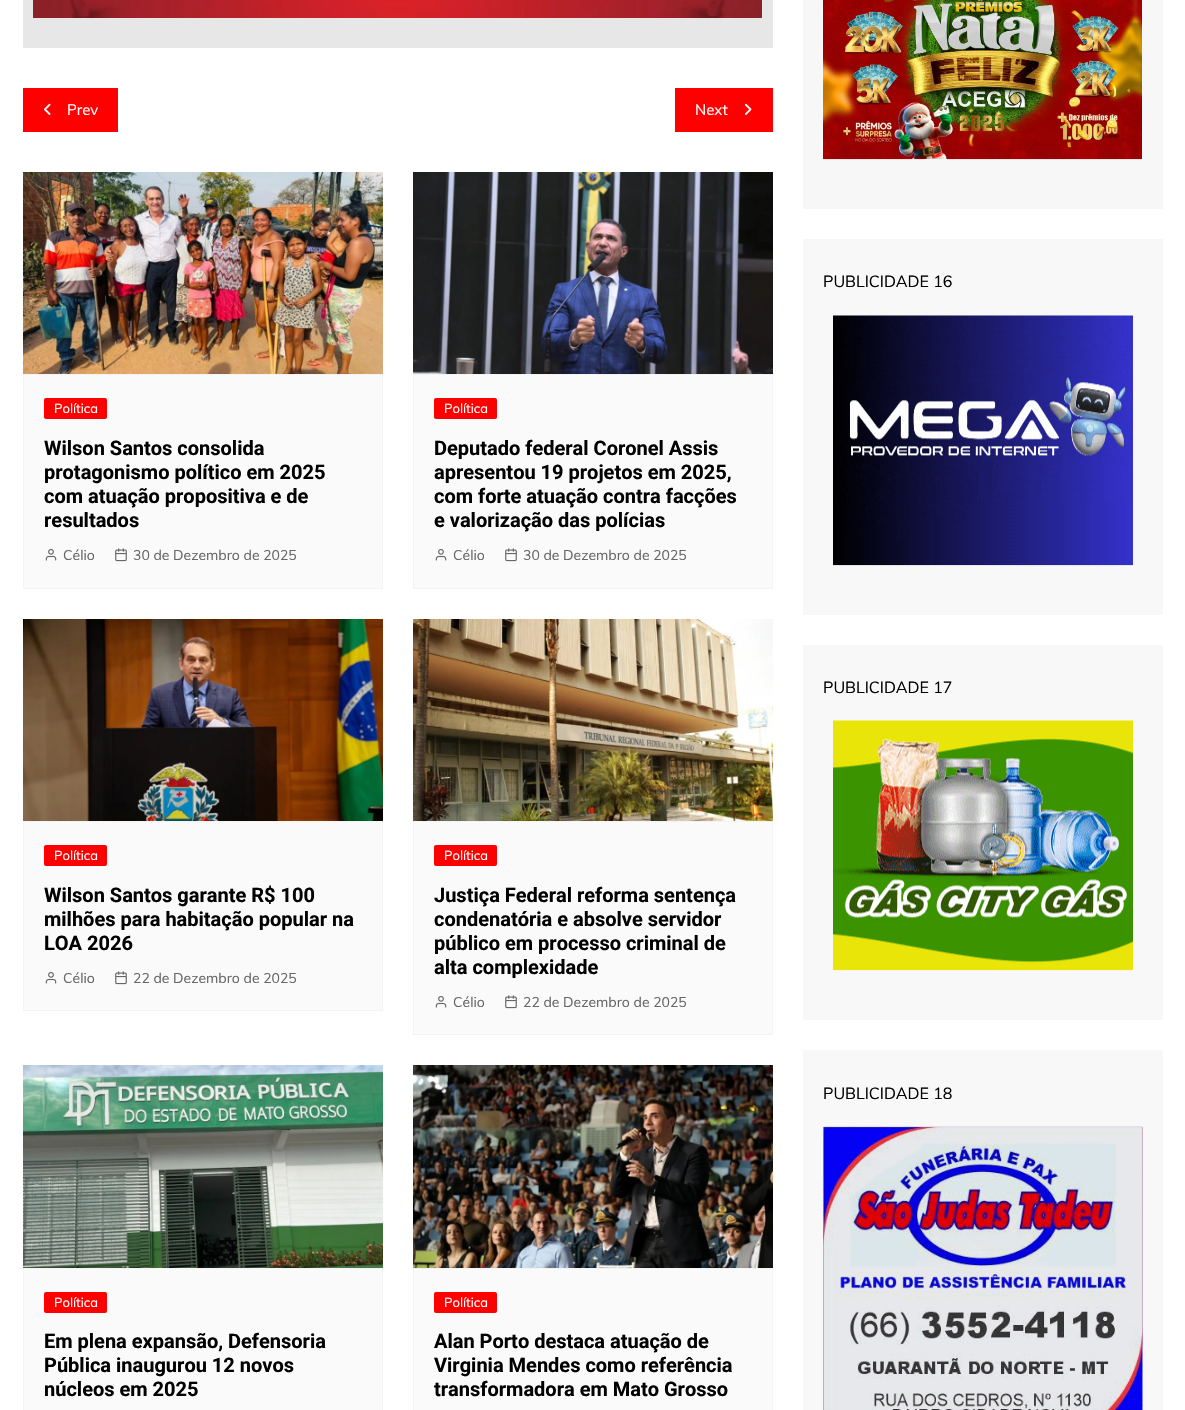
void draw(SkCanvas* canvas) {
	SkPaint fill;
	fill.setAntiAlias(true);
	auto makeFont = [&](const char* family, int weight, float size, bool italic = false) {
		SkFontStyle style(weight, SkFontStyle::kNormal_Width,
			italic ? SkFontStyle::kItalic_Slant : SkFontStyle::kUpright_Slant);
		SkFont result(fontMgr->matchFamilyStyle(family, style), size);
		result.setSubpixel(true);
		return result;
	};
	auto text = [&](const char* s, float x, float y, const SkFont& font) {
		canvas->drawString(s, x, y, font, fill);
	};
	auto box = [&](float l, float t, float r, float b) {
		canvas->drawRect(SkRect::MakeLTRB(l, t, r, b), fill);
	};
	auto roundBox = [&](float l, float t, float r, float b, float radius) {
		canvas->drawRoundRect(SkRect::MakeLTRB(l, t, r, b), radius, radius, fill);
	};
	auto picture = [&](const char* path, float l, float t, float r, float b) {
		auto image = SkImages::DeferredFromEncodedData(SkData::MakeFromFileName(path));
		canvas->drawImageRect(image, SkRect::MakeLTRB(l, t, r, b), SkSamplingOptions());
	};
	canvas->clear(0xFFFFFFFF);
	fill.setColor(0xFFE7E7E7);
	box(23, 0, 773, 48);
	picture("image0.png", 33, 0, 762, 18);
	fill.setColor(0xFFFF0000);
	box(23, 88, 118, 132);
	picture("image1.png", 44, 103, 51, 115);
	box(675, 88, 773, 132);
	picture("image2.png", 744, 103, 752, 115);
	picture("image3.png", 23, 172, 383, 374);
	fill.setColor(0xFFFAFAFA);
	canvas->drawRect(SkRect::MakeLTRB(23.5f, 374.5f, 382.5f, 588.5f), fill);
	fill.setStyle(SkPaint::kStroke_Style);
	fill.setStrokeWidth(1);
	fill.setColor(0xFFF3F3F3);
	canvas->drawRect(SkRect::MakeLTRB(23.5f, 374.5f, 382.5f, 588.5f), fill);
	fill.setStyle(SkPaint::kFill_Style);
	fill.setColor(0xFFFF0000);
	roundBox(44, 398, 107, 419, 2);
	picture("image4.png", 45, 549, 57, 561);
	picture("image5.png", 115, 548, 127, 562);
	picture("image6.png", 413, 172, 773, 374);
	fill.setColor(0xFFFAFAFA);
	canvas->drawRect(SkRect::MakeLTRB(413.5f, 374.5f, 772.5f, 588.5f), fill);
	fill.setStyle(SkPaint::kStroke_Style);
	fill.setColor(0xFFF3F3F3);
	canvas->drawRect(SkRect::MakeLTRB(413.5f, 374.5f, 772.5f, 588.5f), fill);
	fill.setStyle(SkPaint::kFill_Style);
	fill.setColor(0xFFFF0000);
	roundBox(434, 398, 497, 419, 2);
	picture("image4.png", 435, 549, 447, 561);
	picture("image5.png", 505, 548, 517, 562);
	picture("image7.png", 23, 619, 383, 821);
	fill.setColor(0xFFFAFAFA);
	canvas->drawRect(SkRect::MakeLTRB(23.5f, 821.5f, 382.5f, 1010.5f), fill);
	fill.setStyle(SkPaint::kStroke_Style);
	fill.setColor(0xFFF3F3F3);
	canvas->drawRect(SkRect::MakeLTRB(23.5f, 821.5f, 382.5f, 1010.5f), fill);
	fill.setStyle(SkPaint::kFill_Style);
	fill.setColor(0xFFFF0000);
	roundBox(44, 845, 107, 866, 2);
	picture("image4.png", 45, 972, 57, 984);
	picture("image5.png", 115, 971, 127, 985);
	picture("image8.png", 413, 619, 773, 821);
	fill.setColor(0xFFFAFAFA);
	canvas->drawRect(SkRect::MakeLTRB(413.5f, 821.5f, 772.5f, 1034.5f), fill);
	fill.setStyle(SkPaint::kStroke_Style);
	fill.setColor(0xFFF3F3F3);
	canvas->drawRect(SkRect::MakeLTRB(413.5f, 821.5f, 772.5f, 1034.5f), fill);
	fill.setStyle(SkPaint::kFill_Style);
	fill.setColor(0xFFFF0000);
	roundBox(434, 845, 497, 866, 2);
	picture("image4.png", 435, 996, 447, 1008);
	picture("image5.png", 505, 995, 517, 1009);
	picture("image9.png", 23, 1065, 383, 1268);
	fill.setColor(0xFFFAFAFA);
	canvas->drawRect(SkRect::MakeLTRB(23.5f, 1268.5f, 382.5f, 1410.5f), fill);
	fill.setStyle(SkPaint::kStroke_Style);
	fill.setColor(0xFFF3F3F3);
	canvas->drawRect(SkRect::MakeLTRB(23.5f, 1268.5f, 382.5f, 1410.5f), fill);
	fill.setStyle(SkPaint::kFill_Style);
	fill.setColor(0xFFFF0000);
	roundBox(44, 1292, 107, 1313, 2);
	picture("image10.png", 413, 1065, 773, 1268);
	fill.setColor(0xFFFAFAFA);
	canvas->drawRect(SkRect::MakeLTRB(413.5f, 1268.5f, 772.5f, 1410.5f), fill);
	fill.setStyle(SkPaint::kStroke_Style);
	fill.setColor(0xFFF3F3F3);
	canvas->drawRect(SkRect::MakeLTRB(413.5f, 1268.5f, 772.5f, 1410.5f), fill);
	fill.setStyle(SkPaint::kFill_Style);
	fill.setColor(0xFFFF0000);
	roundBox(434, 1292, 497, 1313, 2);
	fill.setColor(0xFFF7F7F7);
	box(803, 0, 1163, 209);
	picture("image11.png", 823, 0, 1142, 160);
	fill.setColor(0xFFF8F8F8);
	box(803, 239, 1163, 615);
	picture("image12.png", 833, 315, 1133, 566);
	box(803, 645, 1163, 1020);
	picture("image13.png", 833, 720, 1133, 971);
	box(803, 1050, 1163, 1410);
	picture("image14.png", 823, 1126, 1143, 1410);
	auto font1 = makeFont("Muli", 400, 15);
	fill.setColor(0xFFFFFFFF);
	text("Prev", 67, 115, font1);
	text("Next", 695, 115, font1);
	auto font2 = makeFont("Muli", 400, 13);
	text("Política", 54, 413, font2);
	auto font3 = makeFont("Roboto", 700, 20);
	fill.setColor(0xFF010101);
	text("Wilson Santos consolida", 44, 455, font3);
	text("protagonismo político em 2025", 44, 479, font3);
	text("com atuação propositiva e de", 44, 503, font3);
	text("resultados", 44, 527, font3);
	auto font4 = makeFont("Muli", 400, 14);
	fill.setColor(0xFF666666);
	text("Célio", 63, 560, font4);
	text("30 de Dezembro de 2025", 133, 560, font4);
	fill.setColor(0xFFFFFFFF);
	text("Política", 444, 413, font2);
	fill.setColor(0xFF010101);
	text("Deputado federal Coronel Assis", 434, 455, font3);
	text("apresentou 19 projetos em 2025,", 434, 479, font3);
	text("com forte atuação contra facções", 434, 503, font3);
	text("e valorização das polícias", 434, 527, font3);
	fill.setColor(0xFF666666);
	text("Célio", 453, 560, font4);
	text("30 de Dezembro de 2025", 523, 560, font4);
	fill.setColor(0xFFFFFFFF);
	text("Política", 54, 860, font2);
	fill.setColor(0xFF010101);
	text("Wilson Santos garante R$ 100", 44, 902, font3);
	text("milhões para habitação popular na", 44, 926, font3);
	text("LOA 2026", 44, 950, font3);
	fill.setColor(0xFF666666);
	text("Célio", 63, 983, font4);
	text("22 de Dezembro de 2025", 133, 983, font4);
	fill.setColor(0xFFFFFFFF);
	text("Política", 444, 860, font2);
	fill.setColor(0xFF010101);
	text("Justiça Federal reforma sentença", 434, 902, font3);
	text("condenatória e absolve servidor", 434, 926, font3);
	text("público em processo criminal de", 434, 950, font3);
	text("alta complexidade", 434, 974, font3);
	fill.setColor(0xFF666666);
	text("Célio", 453, 1007, font4);
	text("22 de Dezembro de 2025", 523, 1007, font4);
	fill.setColor(0xFFFFFFFF);
	text("Política", 54, 1307, font2);
	fill.setColor(0xFF010101);
	text("Em plena expansão, Defensoria", 44, 1348, font3);
	text("Pública inaugurou 12 novos", 44, 1372, font3);
	text("núcleos em 2025", 44, 1396, font3);
	fill.setColor(0xFFFFFFFF);
	text("Política", 444, 1307, font2);
	fill.setColor(0xFF010101);
	text("Alan Porto destaca atuação de", 434, 1348, font3);
	text("Virginia Mendes como referência", 434, 1372, font3);
	text("transformadora em Mato Grosso", 434, 1396, font3);
	auto font5 = makeFont("Muli", 400, 16);
	text("PUBLICIDADE 16", 823, 287, font5);
	text("PUBLICIDADE 17", 823, 693, font5);
	text("PUBLICIDADE 18", 823, 1099, font5);
}
